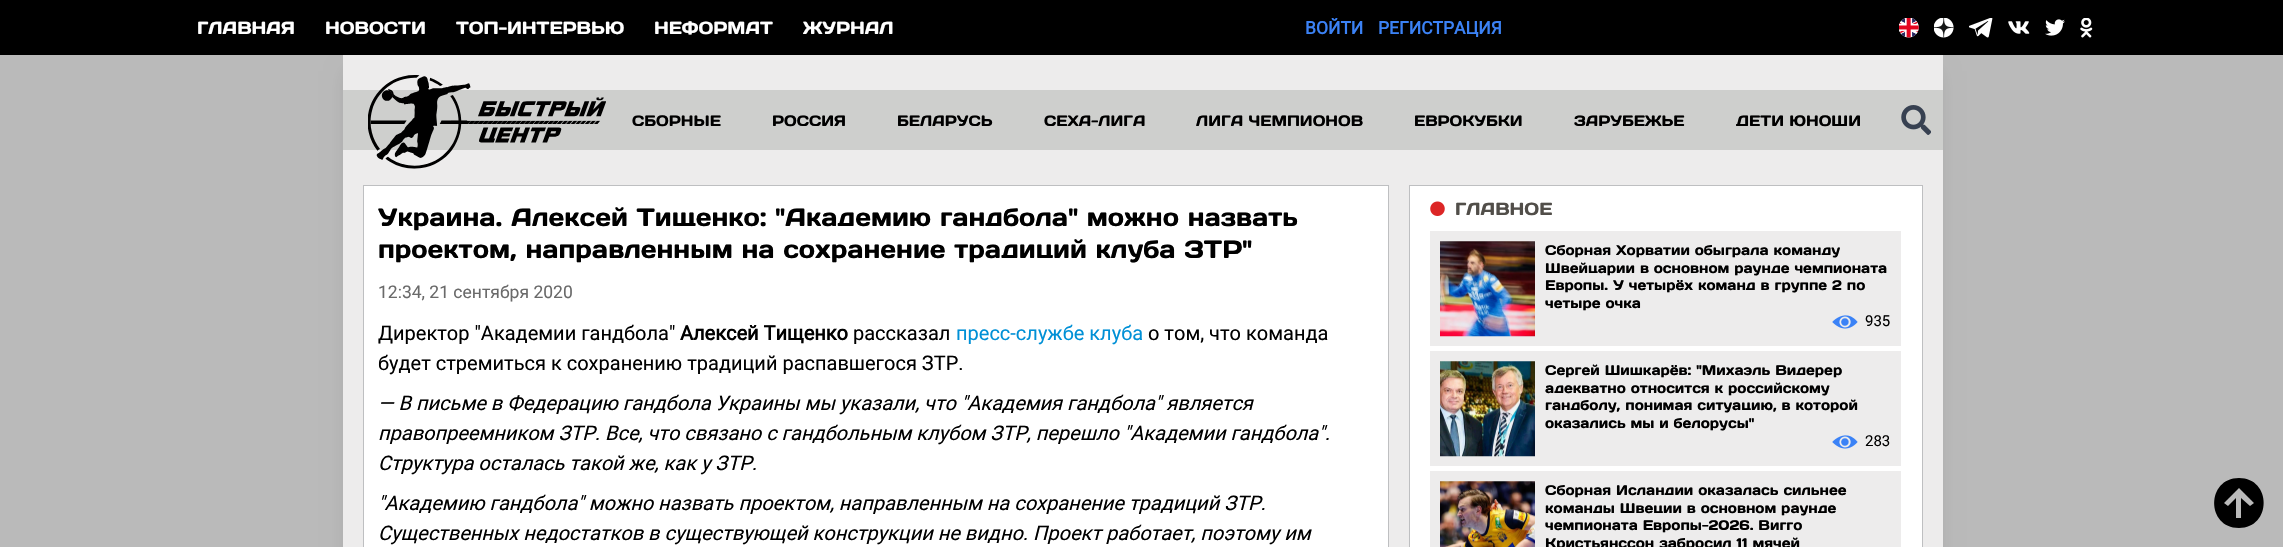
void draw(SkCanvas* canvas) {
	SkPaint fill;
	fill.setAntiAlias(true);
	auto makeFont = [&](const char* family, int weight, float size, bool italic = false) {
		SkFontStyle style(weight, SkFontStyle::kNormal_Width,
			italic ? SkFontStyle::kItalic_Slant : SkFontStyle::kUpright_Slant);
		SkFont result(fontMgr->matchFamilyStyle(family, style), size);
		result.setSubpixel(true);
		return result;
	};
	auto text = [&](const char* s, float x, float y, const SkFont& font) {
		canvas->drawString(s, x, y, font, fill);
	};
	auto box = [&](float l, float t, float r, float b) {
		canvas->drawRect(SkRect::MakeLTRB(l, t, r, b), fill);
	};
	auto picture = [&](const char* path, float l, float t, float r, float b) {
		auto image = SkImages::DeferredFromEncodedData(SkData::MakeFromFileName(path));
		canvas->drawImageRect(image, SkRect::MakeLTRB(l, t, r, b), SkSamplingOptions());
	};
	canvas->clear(0xFFBABABA);
	fill.setColor(0xFF000000);
	box(0, 0, 2283, 55);
	picture("image0.png", 1899, 18, 1919, 38);
	picture("image1.png", 1934, 18, 1954, 38);
	picture("image2.png", 1969, 18, 1993, 38);
	picture("image3.png", 2008, 21, 2030, 34);
	picture("image4.png", 2045, 19, 2065, 36);
	picture("image5.png", 2080, 18, 2093, 38);
	fill.setColor(0x1A000000);
	fill.setMaskFilter(SkMaskFilter::MakeBlur(kNormal_SkBlurStyle, 9.5f));
	canvas->drawRect(SkRect::MakeLTRB(346, 71, 1939, 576), fill);
	fill.setMaskFilter(nullptr);
	fill.setColor(0xFFEDECEC);
	box(343, 55, 1943, 547);
	fill.setColor(0xFFCECFCD);
	box(343, 90, 1943, 150);
	picture("image6.png", 368, 75, 606, 169);
	picture("image7.png", 1901, 105, 1931, 135);
	fill.setColor(0xFFFFFFFF);
	canvas->drawRect(SkRect::MakeLTRB(363.5f, 185.5f, 1388.5f, 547.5f), fill);
	fill.setStyle(SkPaint::kStroke_Style);
	fill.setStrokeWidth(1);
	fill.setColor(0xFFBEBFC1);
	canvas->drawRect(SkRect::MakeLTRB(363.5f, 185.5f, 1388.5f, 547.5f), fill);
	fill.setStyle(SkPaint::kFill_Style);
	fill.setColor(0xFF000000);
	canvas->drawPath(SkPathBuilder().moveTo(2241, 518).lineTo(2241, 498).lineTo(2250, 506).lineTo(2254, 503).lineTo(2239, 488).lineTo(2224, 503).lineTo(2228, 506).lineTo(2236, 498).lineTo(2236, 518).lineTo(2241, 518).moveTo(2239, 478).cubicTo(2272, 478, 2272, 528, 2239, 528).cubicTo(2206, 528, 2206, 478, 2239, 478).close().detach(), fill);
	fill.setColor(0xFFFFFFFF);
	canvas->drawRect(SkRect::MakeLTRB(1409.5f, 185.5f, 1922.5f, 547.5f), fill);
	fill.setStyle(SkPaint::kStroke_Style);
	fill.setColor(0xFFBEBFC1);
	canvas->drawRect(SkRect::MakeLTRB(1409.5f, 185.5f, 1922.5f, 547.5f), fill);
	picture("image8.png", 1430, 201, 1445, 216);
	fill.setStyle(SkPaint::kFill_Style);
	fill.setColor(0xFFEDECEC);
	box(1430, 231, 1901, 346);
	picture("image9.png", 1440, 241, 1535, 337);
	picture("image10.png", 1832, 315, 1858, 329);
	box(1430, 351, 1901, 466);
	picture("image11.png", 1440, 361, 1535, 457);
	picture("image10.png", 1832, 435, 1858, 449);
	box(1430, 471, 1901, 547);
	picture("image12.png", 1440, 481, 1535, 547);
	auto font1 = makeFont("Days", 400, 17.5f);
	fill.setColor(0xFFFFFFFF);
	text("ГЛАВНАЯ", 197, 34, font1);
	text("НОВОСТИ", 325, 34, font1);
	text("ТОП-ИНТЕРВЬЮ", 456, 34, font1);
	text("НЕФОРМАТ", 654, 34, font1);
	text("ЖУРНАЛ", 803, 34, font1);
	auto font2 = makeFont("Roboto", 700, 17.5f);
	fill.setColor(0xFF3B82F6);
	text("ВОЙТИ", 1305, 34, font2);
	text("РЕГИСТРАЦИЯ", 1378, 34, font2);
	auto font3 = makeFont("Days", 400, 15);
	fill.setColor(0xFF000000);
	text("СБОРНЫЕ", 632, 126, font3);
	text("РОССИЯ", 772, 126, font3);
	text("БЕЛАРУСЬ", 897, 126, font3);
	text("СЕХА-ЛИГА", 1044, 126, font3);
	text("ЛИГА ЧЕМПИОНОВ", 1196, 126, font3);
	text("ЕВРОКУБКИ", 1414, 126, font3);
	text("ЗАРУБЕЖЬЕ", 1574, 126, font3);
	text("ДЕТИ ЮНОШИ", 1736, 126, font3);
	auto font4 = makeFont("Days", 400, 25);
	text("Украина. Алексей Тищенко: \"Академию гандбола\" можно назвать", 378, 226, font4);
	text("проектом, направленным на сохранение традиций клуба ЗТР\"", 378, 258, font4);
	auto font5 = makeFont("Roboto", 400, 17.5f);
	fill.setColor(0xFF6A6A6A);
	text("12:34, 21 сентября 2020", 378, 298, font5);
	auto font6 = makeFont("Roboto", 400, 20);
	fill.setColor(0xFF000000);
	text("Директор \"Академии гандбола\"", 378, 340, font6);
	auto font7 = makeFont("Roboto", 700, 20);
	text("Алексей Тищенко", 680, 340, font7);
	text("рассказал", 853, 340, font6);
	fill.setColor(0xFF0090D6);
	text("пресс-службе клуба", 956, 340, font6);
	fill.setColor(0xFF000000);
	text("о том, что команда", 1148, 340, font6);
	text("будет стремиться к сохранению традиций распавшегося ЗТР.", 378, 370, font6);
	auto font8 = makeFont("Roboto", 400, 20, true);
	text("— В письме в Федерацию гандбола Украины мы указали, что \"Академия гандбола\" является", 378, 410, font8);
	text("правопреемником ЗТР. Все, что связано с гандбольным клубом ЗТР, перешло \"Академии гандбола\".", 378, 440, font8);
	text("Структура осталась такой же, как у ЗТР.", 378, 470, font8);
	text("\"Академию гандбола\" можно назвать проектом, направленным на сохранение традиций ЗТР.", 378, 510, font8);
	text("Существенных недостатков в существующей конструкции не видно. Проект работает, поэтому им", 378, 540, font8);
	fill.setColor(0xFF514E49);
	text("ГЛАВНОЕ", 1455, 215, font1);
	auto font9 = makeFont("Days", 400, 14);
	fill.setColor(0xFF000000);
	text("Сборная Хорватии обыграла команду", 1545, 255, font9);
	text("Швейцарии в основном раунде чемпионата", 1545, 273, font9);
	text("Европы. У четырёх команд в группе 2 по", 1545, 290, font9);
	text("четыре очка", 1545, 308, font9);
	auto font10 = makeFont("Roboto", 400, 15);
	text("935", 1865, 326, font10);
	text("Сергей Шишкарёв: \"Михаэль Видерер", 1545, 375, font9);
	text("адекватно относится к российскому", 1545, 393, font9);
	text("гандболу, понимая ситуацию, в которой", 1545, 410, font9);
	text("оказались мы и белорусы\"", 1545, 428, font9);
	text("283", 1865, 446, font10);
	text("Сборная Исландии оказалась сильнее", 1545, 495, font9);
	text("команды Швеции в основном раунде", 1545, 513, font9);
	text("чемпионата Европы-2026. Вигго", 1545, 530, font9);
	text("Кристьянссон забросил 11 мячей", 1545, 548, font9);
}
